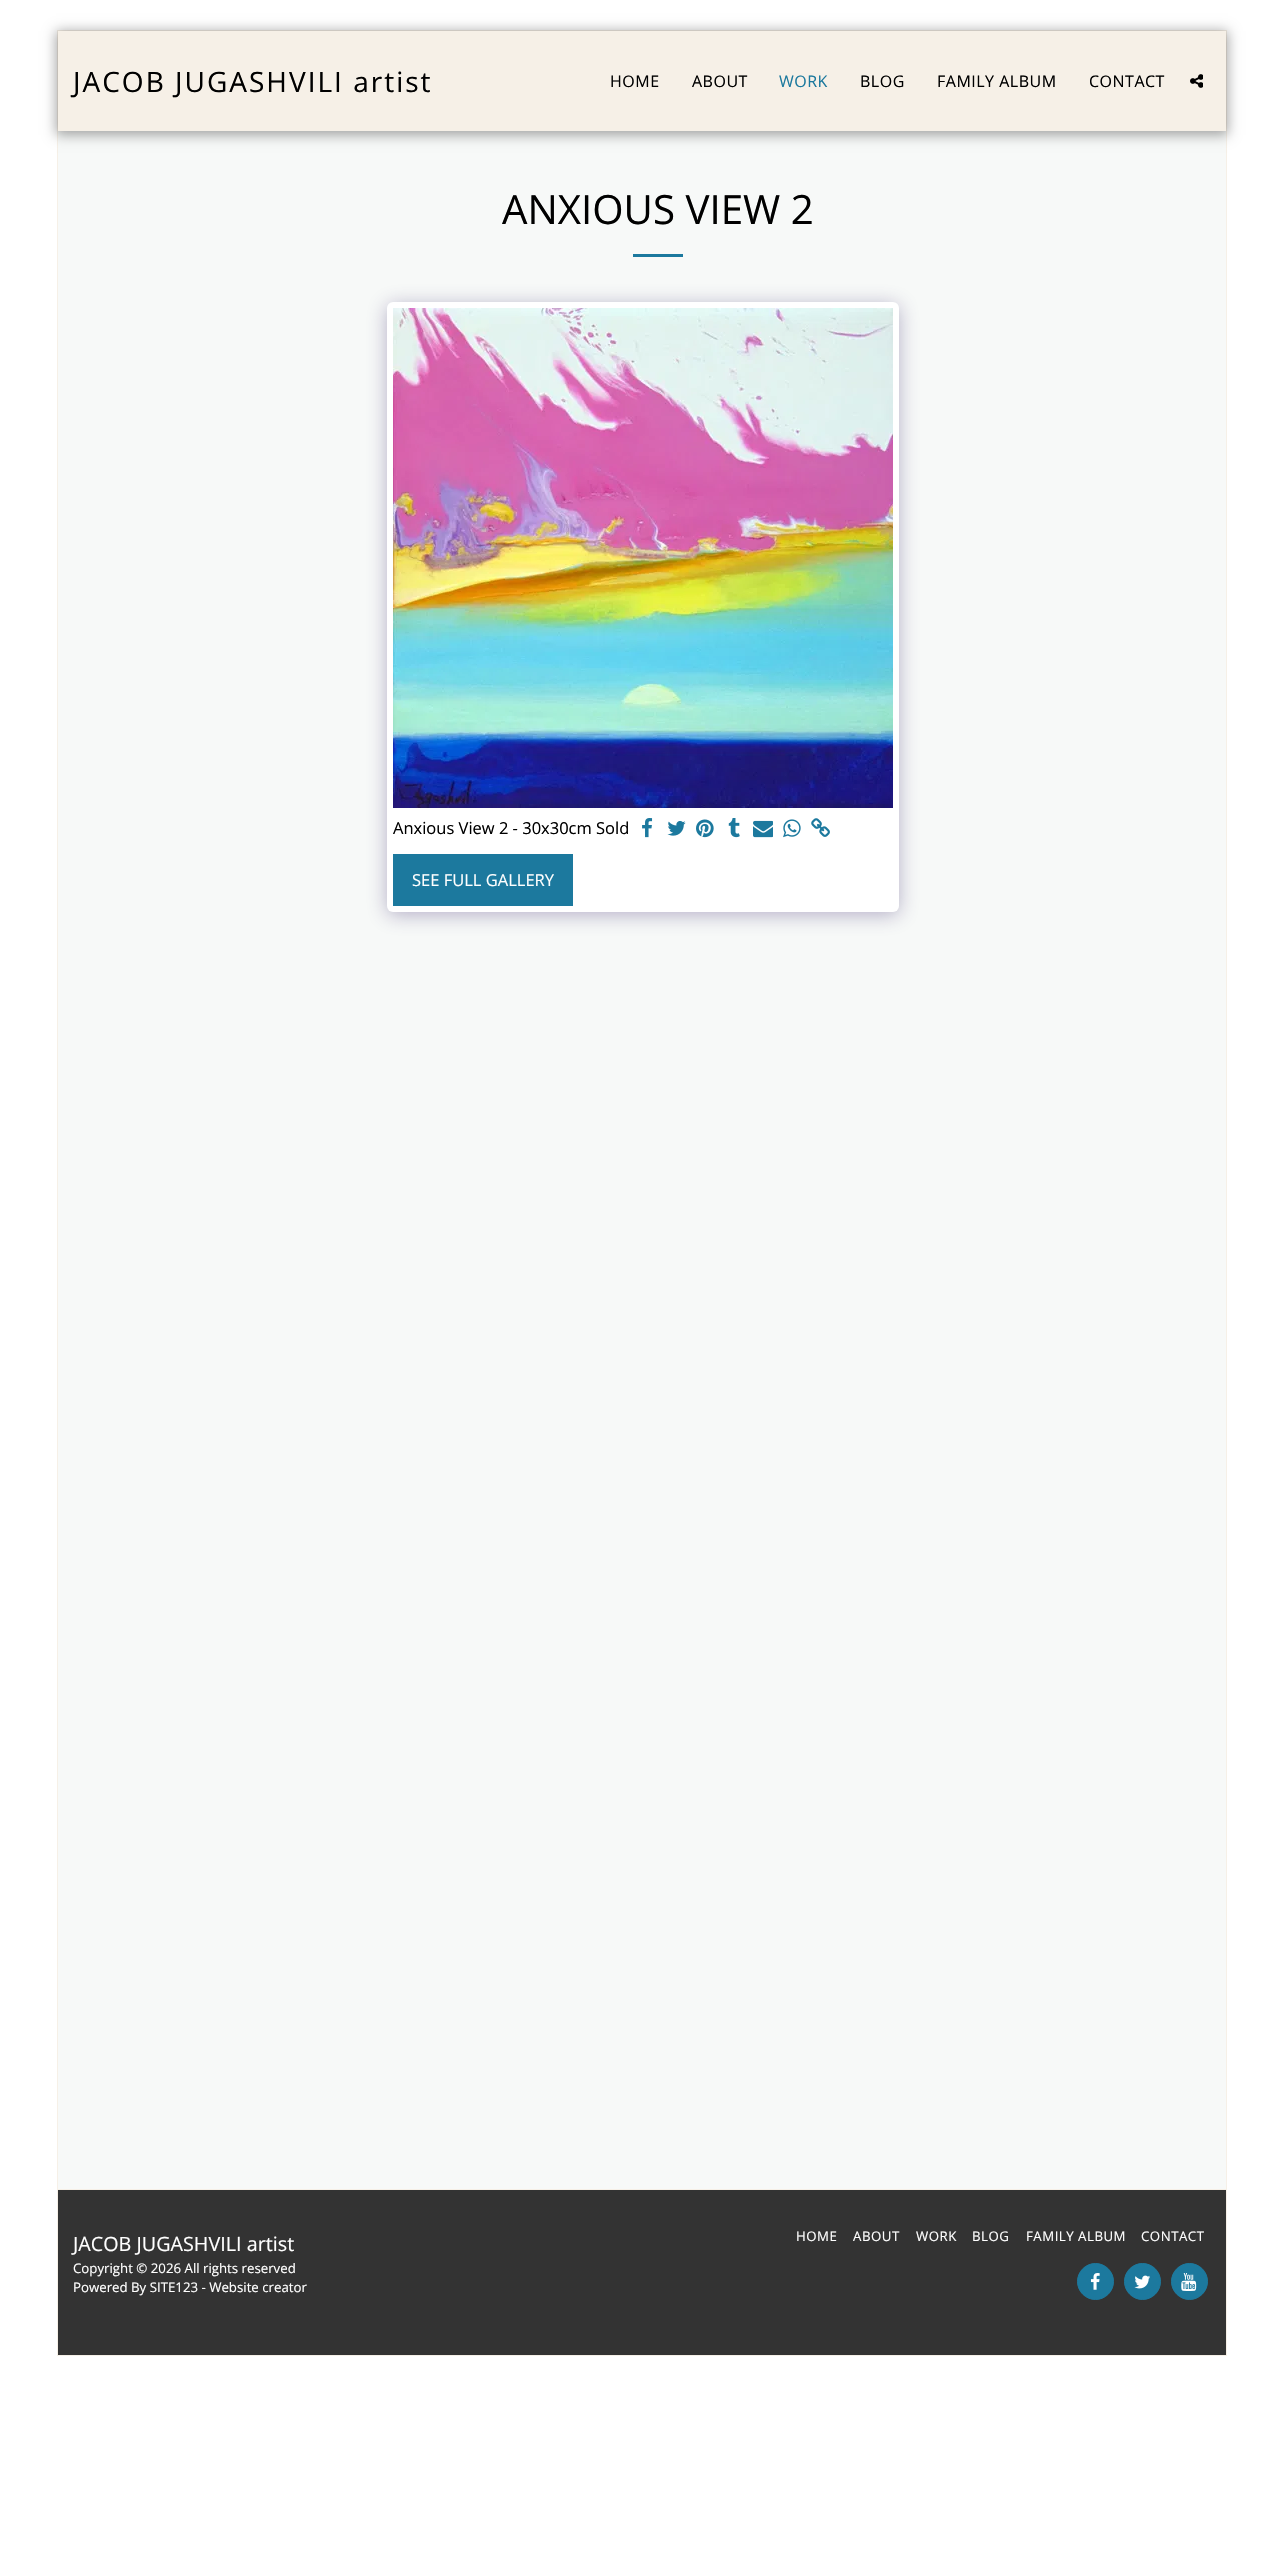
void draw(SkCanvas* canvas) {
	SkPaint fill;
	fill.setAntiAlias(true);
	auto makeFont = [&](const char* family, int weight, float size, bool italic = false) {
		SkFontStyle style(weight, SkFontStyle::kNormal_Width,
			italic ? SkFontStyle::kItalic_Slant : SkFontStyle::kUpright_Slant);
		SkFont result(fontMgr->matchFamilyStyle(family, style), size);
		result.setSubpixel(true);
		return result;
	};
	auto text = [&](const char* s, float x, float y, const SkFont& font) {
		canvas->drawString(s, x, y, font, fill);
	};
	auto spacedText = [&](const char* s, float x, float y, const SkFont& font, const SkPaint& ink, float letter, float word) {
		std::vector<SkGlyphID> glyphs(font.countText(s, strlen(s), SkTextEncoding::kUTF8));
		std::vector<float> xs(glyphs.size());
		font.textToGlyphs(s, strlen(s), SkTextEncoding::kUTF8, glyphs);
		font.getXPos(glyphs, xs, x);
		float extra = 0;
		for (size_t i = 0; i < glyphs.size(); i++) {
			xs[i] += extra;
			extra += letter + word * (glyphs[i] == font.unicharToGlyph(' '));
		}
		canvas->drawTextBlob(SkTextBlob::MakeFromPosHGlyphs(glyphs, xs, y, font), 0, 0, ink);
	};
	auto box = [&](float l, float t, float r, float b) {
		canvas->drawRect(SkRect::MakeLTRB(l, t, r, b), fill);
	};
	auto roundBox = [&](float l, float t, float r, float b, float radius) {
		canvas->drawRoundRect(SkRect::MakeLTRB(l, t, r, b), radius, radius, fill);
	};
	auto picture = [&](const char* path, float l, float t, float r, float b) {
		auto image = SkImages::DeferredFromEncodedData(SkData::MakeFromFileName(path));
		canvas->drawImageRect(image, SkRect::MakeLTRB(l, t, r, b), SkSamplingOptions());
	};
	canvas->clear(0xFFFFFFFF);
	fill.setStyle(SkPaint::kStroke_Style);
	fill.setStrokeWidth(1);
	fill.setColor(0xFFF6F0E7);
	canvas->drawRect(SkRect::MakeLTRB(57.5f, 30.5f, 1226.5f, 2355.5f), fill);
	fill.setStyle(SkPaint::kFill_Style);
	fill.setColor(0xFFF7F9F8);
	box(58, 131, 1226, 2189);
	fill.setColor(0x59000000);
	fill.setMaskFilter(SkMaskFilter::MakeBlur(kNormal_SkBlurStyle, 6));
	canvas->drawRect(SkRect::MakeLTRB(56, 31, 1228, 135), fill);
	fill.setMaskFilter(nullptr);
	fill.setColor(0xFFF6F0E7);
	box(58, 31, 1226, 131);
	picture("image0.png", 1190, 74, 1203, 88);
	fill.setColor(0xFF1C799E);
	box(633, 254, 683, 257);
	fill.setColor(0x664D3F7A);
	fill.setMaskFilter(SkMaskFilter::MakeBlur(kNormal_SkBlurStyle, 10));
	canvas->drawRoundRect(SkRect::MakeLTRB(387, 305, 899, 915), 6, 6, fill);
	fill.setMaskFilter(nullptr);
	fill.setColor(0xFFFFFFFF);
	roundBox(387, 302, 899, 912, 6);
	picture("image1.png", 393, 308, 893, 808);
	picture("image2.png", 642, 818, 653, 838);
	picture("image3.png", 667, 821, 686, 836);
	picture("image4.png", 696, 819, 714, 838);
	picture("image5.png", 728, 818, 740, 838);
	picture("image6.png", 753, 820, 773, 838);
	picture("image7.png", 783, 819, 801, 838);
	picture("image8.png", 811, 818, 830, 837);
	fill.setColor(0xFF1C799E);
	box(393, 854, 573, 906);
	fill.setColor(0xFF333333);
	box(58, 2190, 1226, 2355);
	fill.setColor(0xFFF6F0E7);
	box(58, 2189, 1226, 2190);
	fill.setColor(0xFF1C799E);
	canvas->drawCircle(1095.5f, 2281.5f, 18, fill);
	fill.setStyle(SkPaint::kStroke_Style);
	canvas->drawCircle(1095.5f, 2281.5f, 18, fill);
	picture("image9.png", 1090, 2273, 1100, 2290);
	fill.setStyle(SkPaint::kFill_Style);
	canvas->drawCircle(1142.5f, 2281.5f, 18, fill);
	fill.setStyle(SkPaint::kStroke_Style);
	canvas->drawCircle(1142.5f, 2281.5f, 18, fill);
	picture("image10.png", 1134, 2275, 1150, 2289);
	fill.setStyle(SkPaint::kFill_Style);
	canvas->drawCircle(1189.5f, 2281.5f, 18, fill);
	fill.setStyle(SkPaint::kStroke_Style);
	canvas->drawCircle(1189.5f, 2281.5f, 18, fill);
	picture("image11.png", 1181, 2273, 1197, 2291);
	auto font1 = makeFont("Open Sans", 400, 28);
	fill.setStyle(SkPaint::kFill_Style);
	fill.setColor(0xFF000000);
	spacedText("JACOB JUGASHVILI artist", 73, 92, font1, fill, 2, 0);
	auto font2 = makeFont("Open Sans", 400, 16);
	spacedText("HOME", 610, 87, font2, fill, 0.5f, 0);
	spacedText("ABOUT", 692, 87, font2, fill, 0.5f, 0);
	fill.setColor(0xFF1C799E);
	spacedText("WORK", 779, 87, font2, fill, 0.5f, 0);
	fill.setColor(0xFF000000);
	spacedText("BLOG", 860, 87, font2, fill, 0.5f, 0);
	spacedText("FAMILY ALBUM", 937, 87, font2, fill, 0.5f, 0);
	spacedText("CONTACT", 1089, 87, font2, fill, 0.5f, 0);
	auto font3 = makeFont("Open Sans", 400, 40.25f);
	text("ANXIOUS VIEW 2", 502, 224, font3);
	auto font4 = makeFont("Open Sans", 400, 16.5f);
	text("Anxious View 2 - 30x30cm Sold", 393, 834, font4);
	fill.setColor(0xFFFFFFFF);
	text("SEE FULL GALLERY", 412, 886, font4);
	auto font5 = makeFont("Open Sans", 400, 19.75f);
	text("JACOB JUGASHVILI artist", 73, 2251, font5);
	auto font6 = makeFont("Open Sans", 400, 13.25f);
	text("Copyright © 2026 All rights reserved", 73, 2273, font6);
	text("Powered By SITE123 - Website creator", 73, 2292, font6);
	spacedText("HOME", 796, 2241, font6, fill, 0.5f, 0);
	spacedText("ABOUT", 853, 2241, font6, fill, 0.5f, 0);
	spacedText("WORK", 916, 2241, font6, fill, 0.5f, 0);
	spacedText("BLOG", 972, 2241, font6, fill, 0.5f, 0);
	spacedText("FAMILY ALBUM", 1026, 2241, font6, fill, 0.5f, 0);
	spacedText("CONTACT", 1141, 2241, font6, fill, 0.5f, 0);
}
